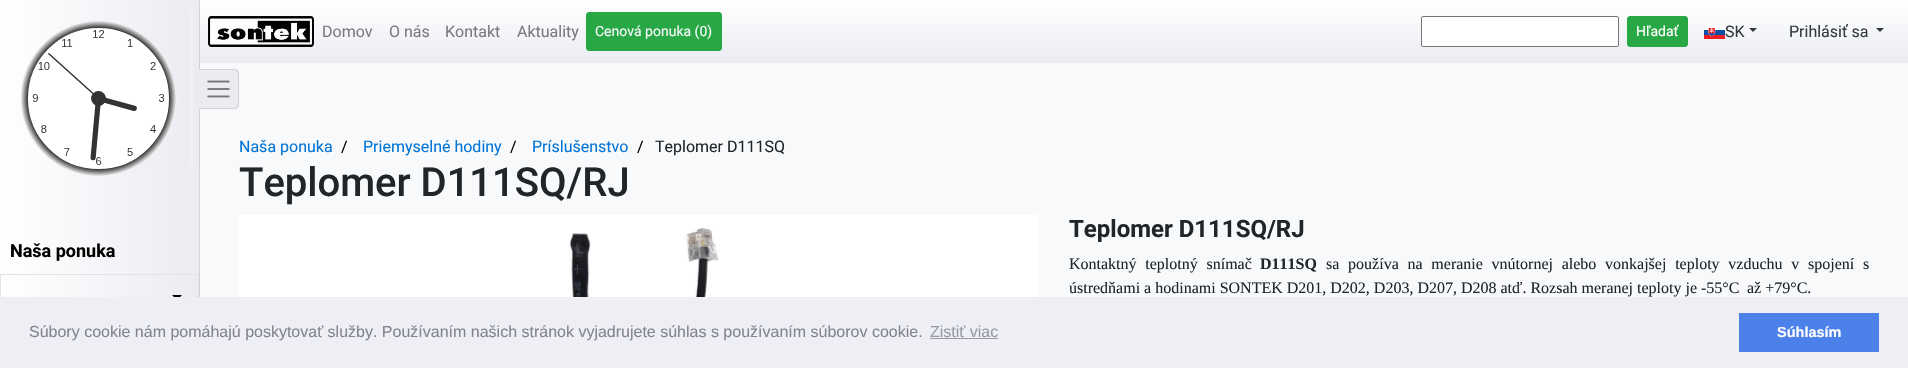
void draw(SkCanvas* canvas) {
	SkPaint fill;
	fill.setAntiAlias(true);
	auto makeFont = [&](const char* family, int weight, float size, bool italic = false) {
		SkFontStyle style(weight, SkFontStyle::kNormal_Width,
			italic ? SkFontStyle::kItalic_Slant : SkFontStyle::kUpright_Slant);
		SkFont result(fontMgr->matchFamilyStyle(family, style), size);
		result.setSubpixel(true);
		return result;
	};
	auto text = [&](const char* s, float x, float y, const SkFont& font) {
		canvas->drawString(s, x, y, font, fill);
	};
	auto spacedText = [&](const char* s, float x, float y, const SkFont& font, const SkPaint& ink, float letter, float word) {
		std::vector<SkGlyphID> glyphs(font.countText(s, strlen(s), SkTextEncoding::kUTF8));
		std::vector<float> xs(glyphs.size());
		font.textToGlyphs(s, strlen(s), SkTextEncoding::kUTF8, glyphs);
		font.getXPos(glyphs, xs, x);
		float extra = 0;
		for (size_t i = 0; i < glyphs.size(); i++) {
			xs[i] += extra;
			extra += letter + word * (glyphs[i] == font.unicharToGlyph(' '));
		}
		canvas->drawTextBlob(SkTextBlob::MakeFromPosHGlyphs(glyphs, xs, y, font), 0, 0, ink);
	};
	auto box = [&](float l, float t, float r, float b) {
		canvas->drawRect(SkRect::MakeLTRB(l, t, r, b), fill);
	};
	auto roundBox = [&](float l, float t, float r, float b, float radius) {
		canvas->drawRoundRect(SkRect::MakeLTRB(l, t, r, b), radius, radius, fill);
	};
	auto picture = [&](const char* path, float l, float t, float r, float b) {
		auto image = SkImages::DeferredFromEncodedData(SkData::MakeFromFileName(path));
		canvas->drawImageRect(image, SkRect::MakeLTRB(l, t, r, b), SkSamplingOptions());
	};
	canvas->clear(0xFFF8F9FA);
	fill.setColor(0xFFD3D3D3);
	box(199, 0, 200, 297);
	fill.setColor(0xFFEAECF2);
	canvas->drawPath(SkPathBuilder().moveTo(199, 69).lineTo(234, 69).cubicTo(237, 69, 239, 71, 239, 74).lineTo(239, 104).cubicTo(239, 107, 237, 109, 234, 109).lineTo(199, 109).close().detach(), fill);
	fill.setColor(0xFFD3D3D3);
	canvas->drawPath(SkPathBuilder(SkPathFillType::kEvenOdd).moveTo(199, 69).lineTo(234, 69).cubicTo(237, 69, 239, 71, 239, 74).lineTo(239, 104).cubicTo(239, 107, 237, 109, 234, 109).lineTo(199, 109).close().moveTo(199, 70).lineTo(234, 70).cubicTo(236, 70, 238, 72, 238, 74).lineTo(238, 104).cubicTo(238, 106, 236, 108, 234, 108).lineTo(199, 108).close().detach(), fill);
	picture("image0.png", 207, 80, 230, 98);
	{
		const SkColor colors[] = {0xFFEAECF2, 0xFFFFFFFF};
		const float stops[] = {0, 1};
		const SkPoint ends[] = {{199, 184}, {0, 184}};
		fill.setShader(SkGradientShader::MakeLinear(ends, colors, stops, 2, SkTileMode::kClamp));
		fill.setAlpha(255);
	}
	box(0, 0, 199, 297);
	fill.setShader(nullptr);
	fill.setColor(0xFFEFF1F5);
	roundBox(189, 12, 193, 165, 2);
	picture("image1.png", 21, 21, 177, 176);
	fill.setStyle(SkPaint::kStroke_Style);
	fill.setStrokeWidth(1);
	fill.setColor(0xFFE3E3E3);
	canvas->drawRect(SkRect::MakeLTRB(0.5f, 274.5f, 198.5f, 322.5f), fill);
	fill.setStyle(SkPaint::kFill_Style);
	fill.setColor(0xFF000000);
	canvas->drawPath(SkPathBuilder().moveTo(172, 295).lineTo(182, 295).lineTo(177, 300).close().detach(), fill);
	{
		const SkColor colors[] = {0xFFEAECF2, 0xFFFFFFFF};
		const float stops[] = {0, 1};
		const SkPoint ends[] = {{1054, 63}, {1054, 0}};
		fill.setShader(SkGradientShader::MakeLinear(ends, colors, stops, 2, SkTileMode::kClamp));
		fill.setAlpha(255);
	}
	box(200, 0, 1908, 63);
	picture("image2.png", 208, 16, 314, 47);
	fill.setShader(nullptr);
	fill.setColor(0xFF28A745);
	canvas->drawRoundRect(SkRect::MakeLTRB(586.5f, 12.5f, 721.5f, 50.5f), 2.5f, 2.5f, fill);
	fill.setStyle(SkPaint::kStroke_Style);
	canvas->drawRoundRect(SkRect::MakeLTRB(586.5f, 12.5f, 721.5f, 50.5f), 2.5f, 2.5f, fill);
	fill.setStyle(SkPaint::kFill_Style);
	fill.setColor(0xFFFFFFFF);
	canvas->drawRoundRect(SkRect::MakeLTRB(1421.5f, 16.5f, 1618.5f, 46.5f), 1.5f, 1.5f, fill);
	fill.setStyle(SkPaint::kStroke_Style);
	fill.setColor(0xFF767676);
	canvas->drawRoundRect(SkRect::MakeLTRB(1421.5f, 16.5f, 1618.5f, 46.5f), 1.5f, 1.5f, fill);
	fill.setStyle(SkPaint::kFill_Style);
	fill.setColor(0xFF28A745);
	canvas->drawRoundRect(SkRect::MakeLTRB(1627.5f, 16.5f, 1687.5f, 46.5f), 2.5f, 2.5f, fill);
	fill.setStyle(SkPaint::kStroke_Style);
	canvas->drawRoundRect(SkRect::MakeLTRB(1627.5f, 16.5f, 1687.5f, 46.5f), 2.5f, 2.5f, fill);
	picture("image3.png", 1704, 24, 1725, 39);
	fill.setStyle(SkPaint::kFill_Style);
	fill.setColor(0xFF343A40);
	canvas->drawPath(SkPathBuilder().moveTo(1749, 28).lineTo(1757, 28).lineTo(1753, 32).close().detach(), fill);
	canvas->drawPath(SkPathBuilder().moveTo(1876, 28).lineTo(1884, 28).lineTo(1880, 32).close().detach(), fill);
	fill.setColor(0xFFFFFFFF);
	box(239, 215, 1039, 297);
	picture("image4.png", 569, 228, 719, 297);
	fill.setColor(0xFFEDEFF5);
	box(0, 297, 1908, 368);
	fill.setColor(0xFF9899A5);
	box(930, 338, 998, 339);
	fill.setColor(0xFF4B81E8);
	box(1739, 313, 1879, 352);
	auto font1 = makeFont("Roboto", 700, 18);
	fill.setColor(0xFF000000);
	text("Naša ponuka", 10, 257, font1);
	auto font2 = makeFont("Roboto", 400, 16);
	fill.setColor(0xFF7A7B7C);
	text("Domov", 322, 37, font2);
	text("O nás", 389, 37, font2);
	text("Kontakt", 445, 37, font2);
	text("Aktuality", 517, 37, font2);
	auto font3 = makeFont("Roboto", 400, 14);
	fill.setColor(0xFFF8F9FA);
	text("Cenová ponuka (0)", 595, 36, font3);
	fill.setColor(0xFFFFFFFF);
	text("Hľadať", 1636, 36, font3);
	fill.setColor(0xFF343A40);
	text("SK", 1725, 37, font2);
	text("Prihlásiť sa", 1789, 37, font2);
	fill.setColor(0xFF0275D8);
	text("Naša ponuka", 239, 152, font2);
	fill.setColor(0xFF000000);
	text("/", 341, 152, font2);
	fill.setColor(0xFF0275D8);
	text("Priemyselné hodiny", 363, 152, font2);
	fill.setColor(0xFF000000);
	text("/", 510, 152, font2);
	fill.setColor(0xFF0275D8);
	text("Príslušenstvo", 532, 152, font2);
	fill.setColor(0xFF000000);
	text("/", 637, 152, font2);
	fill.setColor(0xFF212529);
	text("Teplomer D111SQ", 655, 152, font2);
	auto font4 = makeFont("Roboto", 500, 40);
	text("Teplomer D111SQ/RJ", 239, 196, font4);
	auto font5 = makeFont("Roboto", 700, 24);
	text("Teplomer D111SQ/RJ", 1069, 237, font5);
	auto font6 = makeFont("Liberation Serif", 400, 16);
	spacedText("Kontaktný teplotný snímač", 1069, 269, font6, fill, 0, 4.75f);
	auto font7 = makeFont("Liberation Serif", 700, 16);
	text("D111SQ", 1260, 269, font7);
	spacedText("sa používa na meranie vnútornej alebo vonkajšej teploty vzduchu v spojení s", 1326, 269, font6, fill, 0, 4.75f);
	text("ústredňami a hodinami SONTEK D201, D202, D203, D207, D208 atď. Rozsah meranej teploty je -55°C", 1069, 293, font6);
	text("až +79°C.", 1747, 293, font6);
	auto font8 = makeFont("Liberation Sans", 400, 16);
	fill.setColor(0xFF838391);
	text("Súbory cookie nám pomáhajú poskytovať služby. Používaním našich stránok vyjadrujete súhlas s používaním súborov cookie.", 29, 337, font8);
	fill.setColor(0xFF9899A5);
	text("Zistiť viac", 930, 337, font8);
	auto font9 = makeFont("Liberation Sans", 700, 14.5f);
	fill.setColor(0xFFFFFFFF);
	text("Súhlasím", 1777, 337, font9);
}
